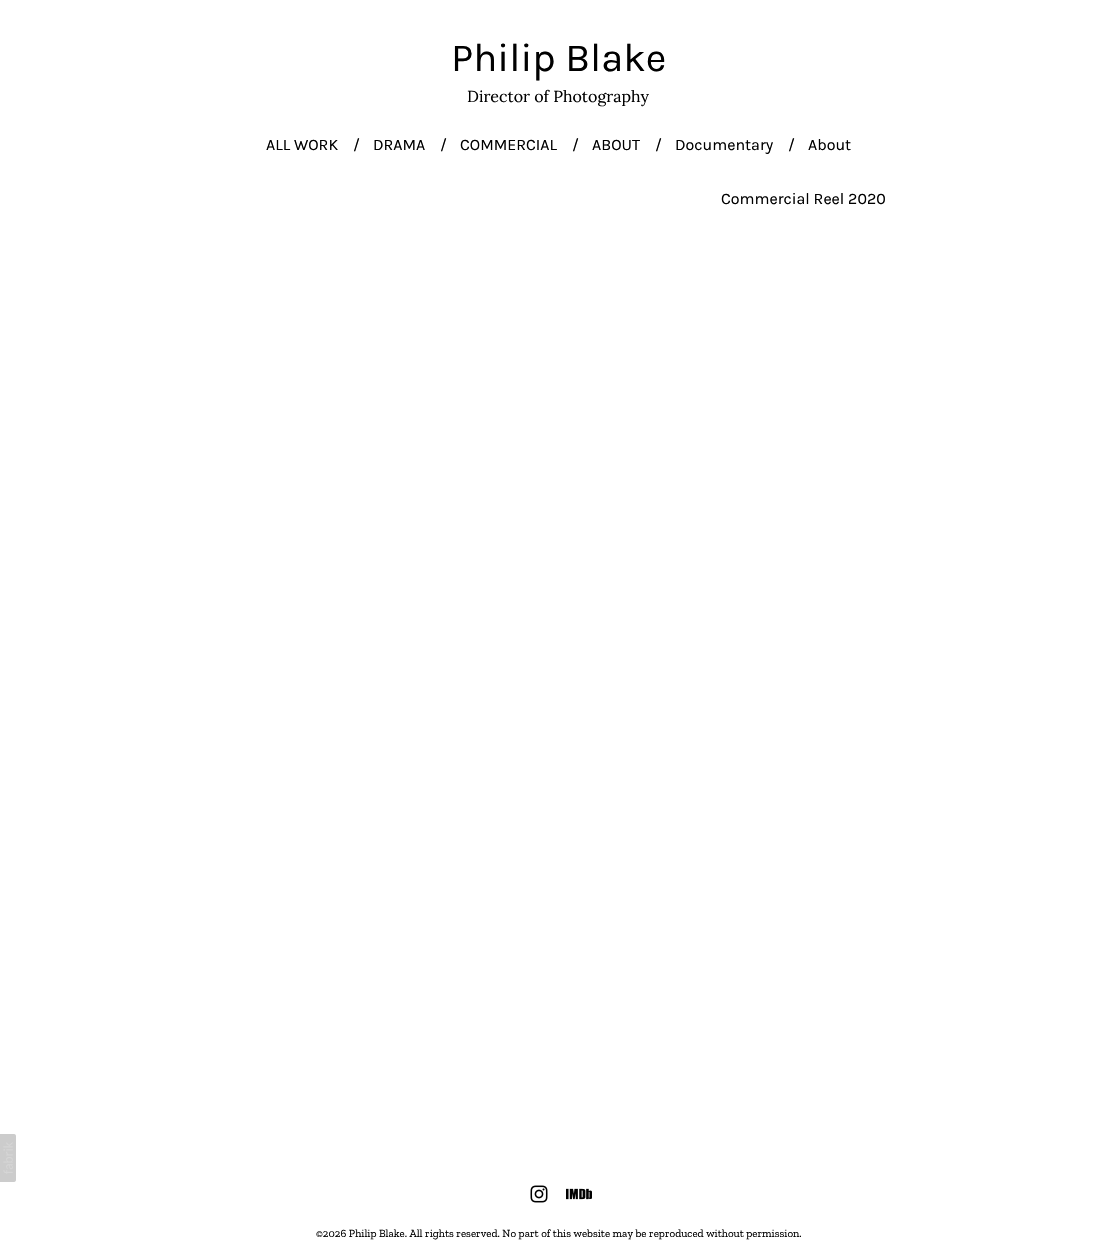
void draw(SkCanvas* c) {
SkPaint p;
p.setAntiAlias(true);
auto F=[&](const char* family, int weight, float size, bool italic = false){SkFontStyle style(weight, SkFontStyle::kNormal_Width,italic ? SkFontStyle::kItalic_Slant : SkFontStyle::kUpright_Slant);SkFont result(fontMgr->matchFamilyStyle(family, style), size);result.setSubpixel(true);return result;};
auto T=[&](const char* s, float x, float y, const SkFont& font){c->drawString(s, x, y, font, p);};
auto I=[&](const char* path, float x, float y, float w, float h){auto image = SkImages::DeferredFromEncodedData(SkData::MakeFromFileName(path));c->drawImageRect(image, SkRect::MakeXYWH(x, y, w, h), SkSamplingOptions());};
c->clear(0xffffffff);
I("1.png",0,1134,16,48);
auto f1 = F("Karla",400,40);
p.setColor(0xff000000);
T("Philip Blake",451,71,f1);
auto f2 = F("Lora",400,16);
T("Director of Photography",467,102,f2);
auto f3 = F("Karla",400,16);
T("ALL WORK",266,150,f3);
T("/",353,150,f3);
T("DRAMA",373,150,f3);
T("/",440,150,f3);
T("COMMERCIAL",460,150,f3);
T("/",572,150,f3);
T("ABOUT",592,150,f3);
T("/",655,150,f3);
T("Documentary",675,150,f3);
T("/",788,150,f3);
T("About",808,150,f3);
T("Commercial Reel 2020",721,204,f3);
I("2.png",530,1185,18,18);
I("3.png",566,1188,26,12);
auto f4 = F("Zilla Slab",400,11);
T("©2026 Philip Blake. All rights reserved. No part of this website may be reproduced without permission.",316,1237,f4);
}
